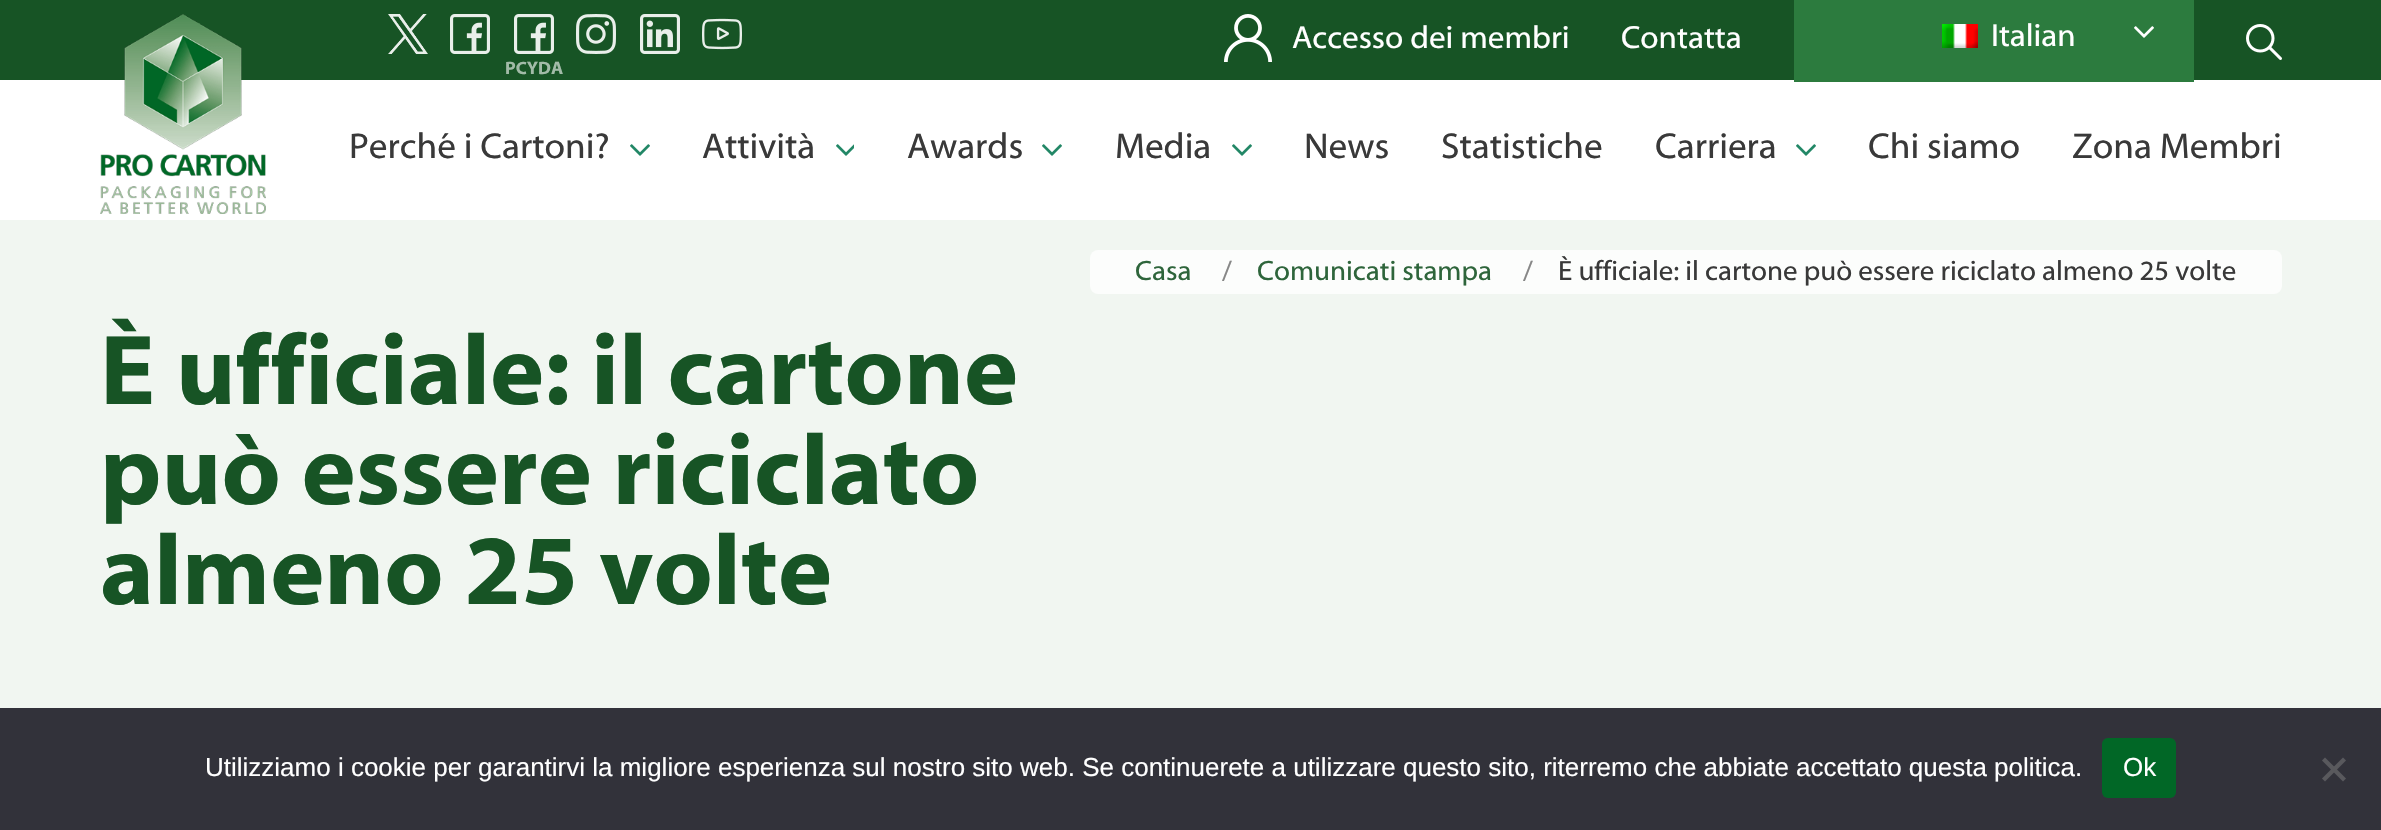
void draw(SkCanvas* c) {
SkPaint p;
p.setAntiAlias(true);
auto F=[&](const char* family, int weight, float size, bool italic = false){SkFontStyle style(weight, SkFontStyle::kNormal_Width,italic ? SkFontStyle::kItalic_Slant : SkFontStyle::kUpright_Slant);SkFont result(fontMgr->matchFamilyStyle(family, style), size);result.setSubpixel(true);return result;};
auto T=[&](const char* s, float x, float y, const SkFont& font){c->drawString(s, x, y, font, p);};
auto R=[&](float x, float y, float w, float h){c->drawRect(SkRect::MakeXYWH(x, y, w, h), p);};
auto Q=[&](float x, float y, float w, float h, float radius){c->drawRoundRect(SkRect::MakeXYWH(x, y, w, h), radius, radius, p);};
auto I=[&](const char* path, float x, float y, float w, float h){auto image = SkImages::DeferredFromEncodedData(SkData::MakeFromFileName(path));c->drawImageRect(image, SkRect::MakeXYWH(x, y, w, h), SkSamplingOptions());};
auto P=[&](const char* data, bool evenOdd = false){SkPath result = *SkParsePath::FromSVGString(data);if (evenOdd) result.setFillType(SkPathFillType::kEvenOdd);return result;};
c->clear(0xfff1f6f1);
p.setColor(0xff175425);
R(0,0,2381,80);
I("1.png",1224,14,48,48);
auto f1 = F("Myriad",400,32);
p.setColor(0xffffffff);
T("Accesso dei membri",1292,48,f1);
T("Contatta",1621,48,f1);
R(0,80,2381,140);
p.setColor(0xff2c7b3e);
R(1794,0,400,82);
I("2.png",1942,24,36,24);
p.setColor(0xffffffff);
T("Italian",1991,46,f1);
I("3.png",2134,26,20,12);
I("4.png",2246,24,36,36);
I("5.png",388,14,40,40);
I("6.png",450,14,40,40);
I("7.png",576,14,40,40);
I("8.png",640,14,40,40);
I("9.png",702,18,40,32);
I("6.png",514,14,40,40);
auto f2 = F("Myriad",700,18);
p.setColor(0xffa2bba8);
T("PCYDA",505,74,f2);
I("10.png",100,14,166,200);
auto f3 = F("Myriad",400,36);
p.setColor(0xff393939);
T("Perché i Cartoni?",349,158,f3);
I("11.png",630,144,20,12);
T("Attività",702,158,f3);
I("12.png",836,144,18,12);
T("Awards",907,158,f3);
I("11.png",1042,144,20,12);
T("Media",1115,158,f3);
I("11.png",1232,144,20,12);
T("News",1304,158,f3);
T("Statistiche",1441,158,f3);
T("Carriera",1655,158,f3);
I("11.png",1796,144,20,12);
T("Chi siamo",1868,158,f3);
T("Zona Membri",2072,158,f3);
p.setColor(0xfffcfdfc);
Q(1090,250,1192,44,8);
auto f4 = F("Myriad",400,28);
p.setColor(0xff2e653b);
T("Casa",1135,280,f4);
p.setColor(0xff878787);
T("/",1222,280,f4);
p.setColor(0xff2e653b);
T("Comunicati stampa",1257,280,f4);
p.setColor(0xff878787);
T("/",1523,280,f4);
p.setColor(0xff393939);
T("È ufficiale: il cartone può essere riciclato almeno 25 volte",1558,280,f4);
auto f5 = F("Myriad",700,100);
p.setColor(0xff175425);
T("È ufficiale: il cartone",100,404,f5);
T("può essere riciclato",100,504,f5);
T("almeno 25 volte",100,604,f5);
p.setColor(0xff32323a);
R(0,708,2381,122);
auto f6 = F("Liberation Sans",400,26);
p.setColor(0xffffffff);
T("Utilizziamo i cookie per garantirvi la migliore esperienza sul nostro sito web. Se continuerete a utilizzare questo sito, riterremo che abbiate accettato questa politica.",205,776,f6);
p.setColor(0xff016726);
Q(2102,738,74,60,6);
p.setColor(0xffffffff);
T("Ok",2123,776,f6);
p.setColor(0xff59595d);
c->drawPath(P("M2343 757.5l3 3l-21 21l-3-3z"),p);
c->drawPath(P("M2322 760.5l3-3l21 21l-3 3z"),p);
}
